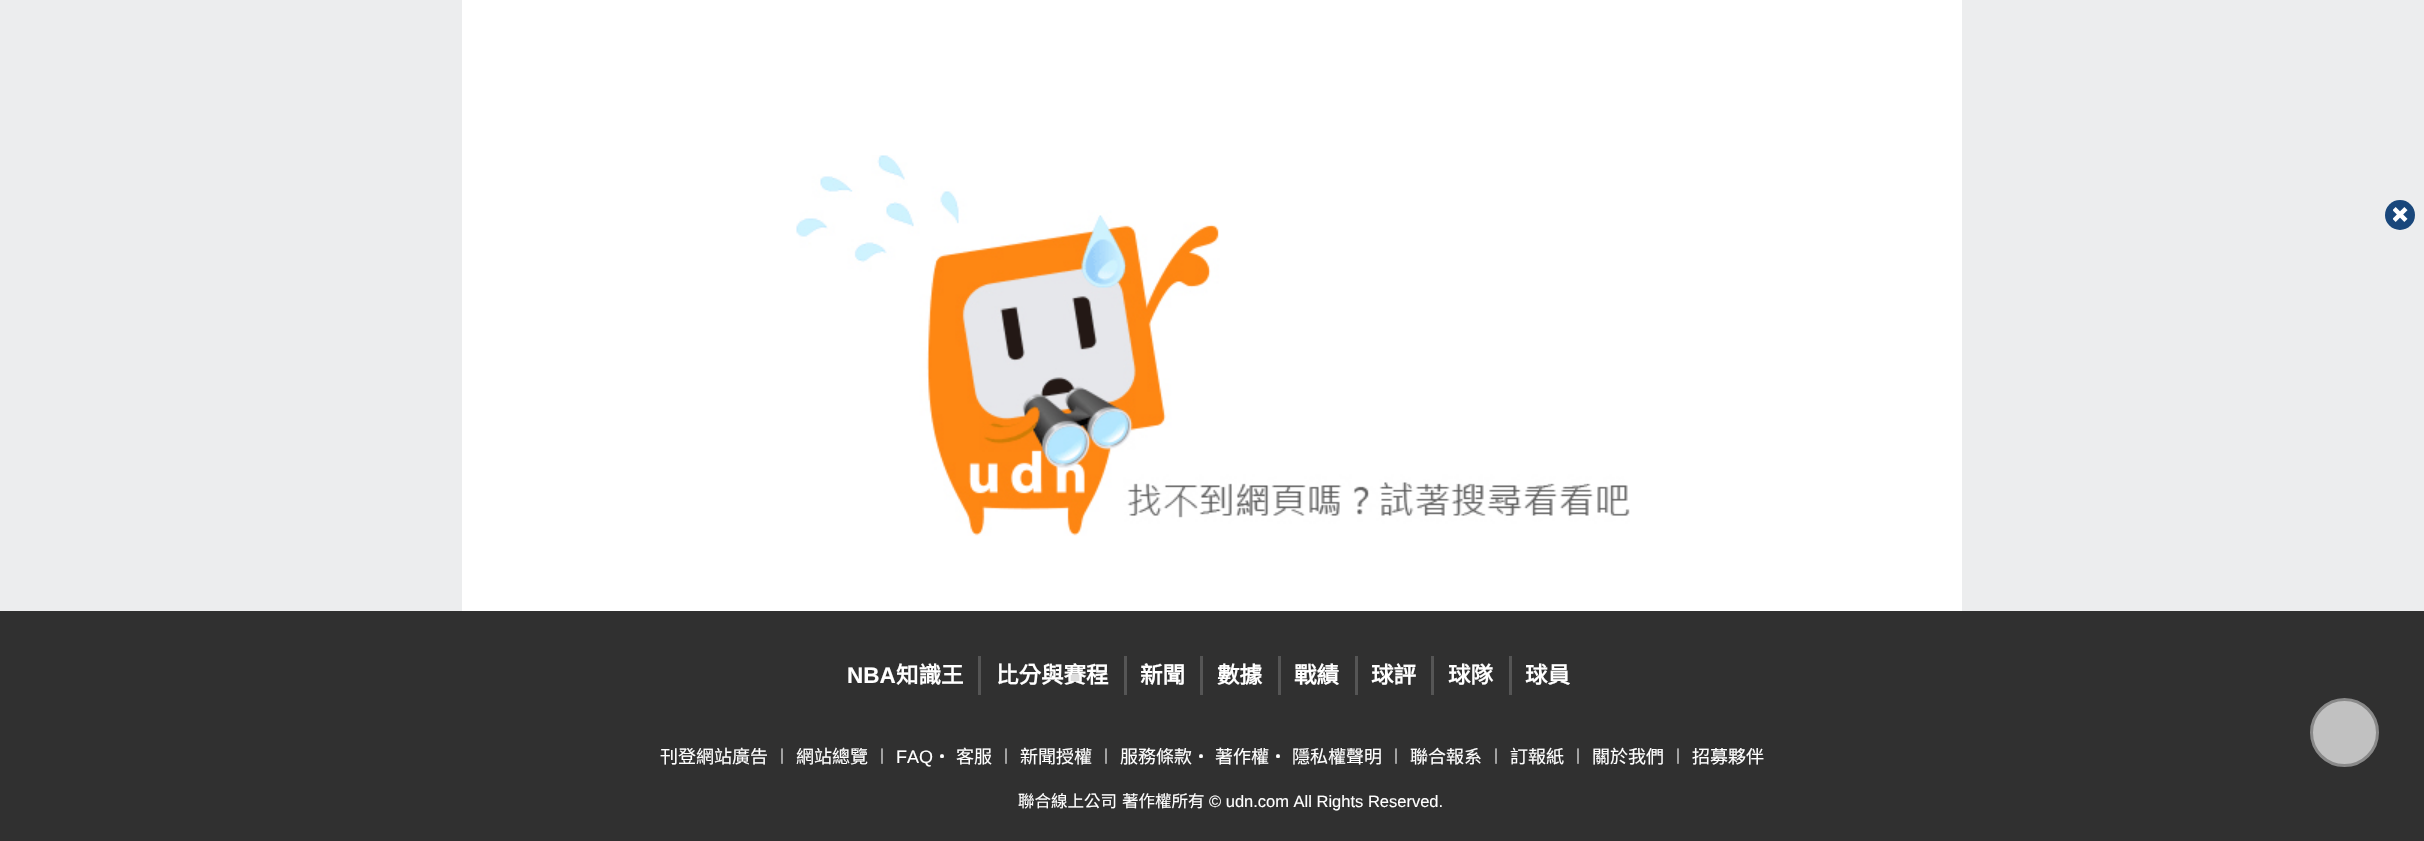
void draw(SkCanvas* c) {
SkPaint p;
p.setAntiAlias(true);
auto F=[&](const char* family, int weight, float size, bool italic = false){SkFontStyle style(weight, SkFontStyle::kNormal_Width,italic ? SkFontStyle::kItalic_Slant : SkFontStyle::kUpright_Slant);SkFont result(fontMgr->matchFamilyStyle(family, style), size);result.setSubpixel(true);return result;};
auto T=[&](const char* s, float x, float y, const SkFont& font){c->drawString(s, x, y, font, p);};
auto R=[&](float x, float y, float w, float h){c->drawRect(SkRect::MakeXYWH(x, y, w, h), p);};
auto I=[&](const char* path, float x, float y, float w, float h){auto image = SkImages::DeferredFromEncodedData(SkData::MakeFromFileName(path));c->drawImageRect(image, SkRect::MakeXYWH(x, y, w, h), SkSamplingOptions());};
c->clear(0xffecedee);
p.setColor(0xffffffff);
R(462,0,1500,611);
I("1.png",796,155,834,381);
p.setColor(0xff303030);
R(0,611,2424,230);
p.setColor(0xff19477b);
c->drawCircle(2400,215,15,p);
I("2.png",2393,207,15,15);
p.setColor(0xff555555);
R(978,656,3,39);
auto f1 = F("Liberation Sans",700,22.5);
p.setColor(0xffffffff);
T("NBA",847,683,f1);
auto f2 = F("Noto Sans CJK TC",700,22.5);
T("知識王",896,683,f2);
p.setColor(0xff555555);
R(1124,656,3,39);
p.setColor(0xffffffff);
T("比分與賽程",996,683,f2);
p.setColor(0xff555555);
R(1200,656,3,39);
p.setColor(0xffffffff);
T("新聞",1140,683,f2);
p.setColor(0xff555555);
R(1278,656,3,39);
p.setColor(0xffffffff);
T("數據",1217,683,f2);
p.setColor(0xff555555);
R(1355,656,3,39);
p.setColor(0xffffffff);
T("戰績",1294,683,f2);
p.setColor(0xff555555);
R(1431,656,3,39);
p.setColor(0xffffffff);
T("球評",1371,683,f2);
p.setColor(0xff555555);
R(1509,656,3,39);
p.setColor(0xffffffff);
T("球隊",1448,683,f2);
T("球員",1525,683,f2);
auto f3 = F("Noto Sans CJK TC",400,18);
T("刊登網站廣告",660,763,f3);
T("︱",773,763,f3);
T("網站總覽",796,763,f3);
T("︱",873,763,f3);
auto f4 = F("Liberation Sans",400,18);
T("FAQ",896,763,f4);
T("‧",933,763,f3);
T("客服",956,763,f3);
T("︱",997,763,f3);
T("新聞授權",1020,763,f3);
T("︱",1097,763,f3);
T("服務條款‧",1120,763,f3);
T("著作權‧",1215,763,f3);
T("隱私權聲明",1292,763,f3);
T("︱",1387,763,f3);
T("聯合報系",1410,763,f3);
T("︱",1487,763,f3);
T("訂報紙",1510,763,f3);
T("︱",1569,763,f3);
T("關於我們",1592,763,f3);
T("︱",1669,763,f3);
T("招募夥伴",1692,763,f3);
auto f5 = F("Noto Sans CJK TC",400,16.5);
T("聯合線上公司",1018,807,f5);
T("著作權所有",1122,807,f5);
auto f6 = F("Liberation Sans",400,16.5);
T("© udn.com All Rights Reserved.",1209,807,f6);
p.setColor(0xffc1c1c1);
c->drawCircle(2344.5,732.5,33,p);
p.setStroke(true);
p.setStrokeWidth(3);
p.setColor(0xff898989);
c->drawCircle(2344.5,732.5,33,p);
}
